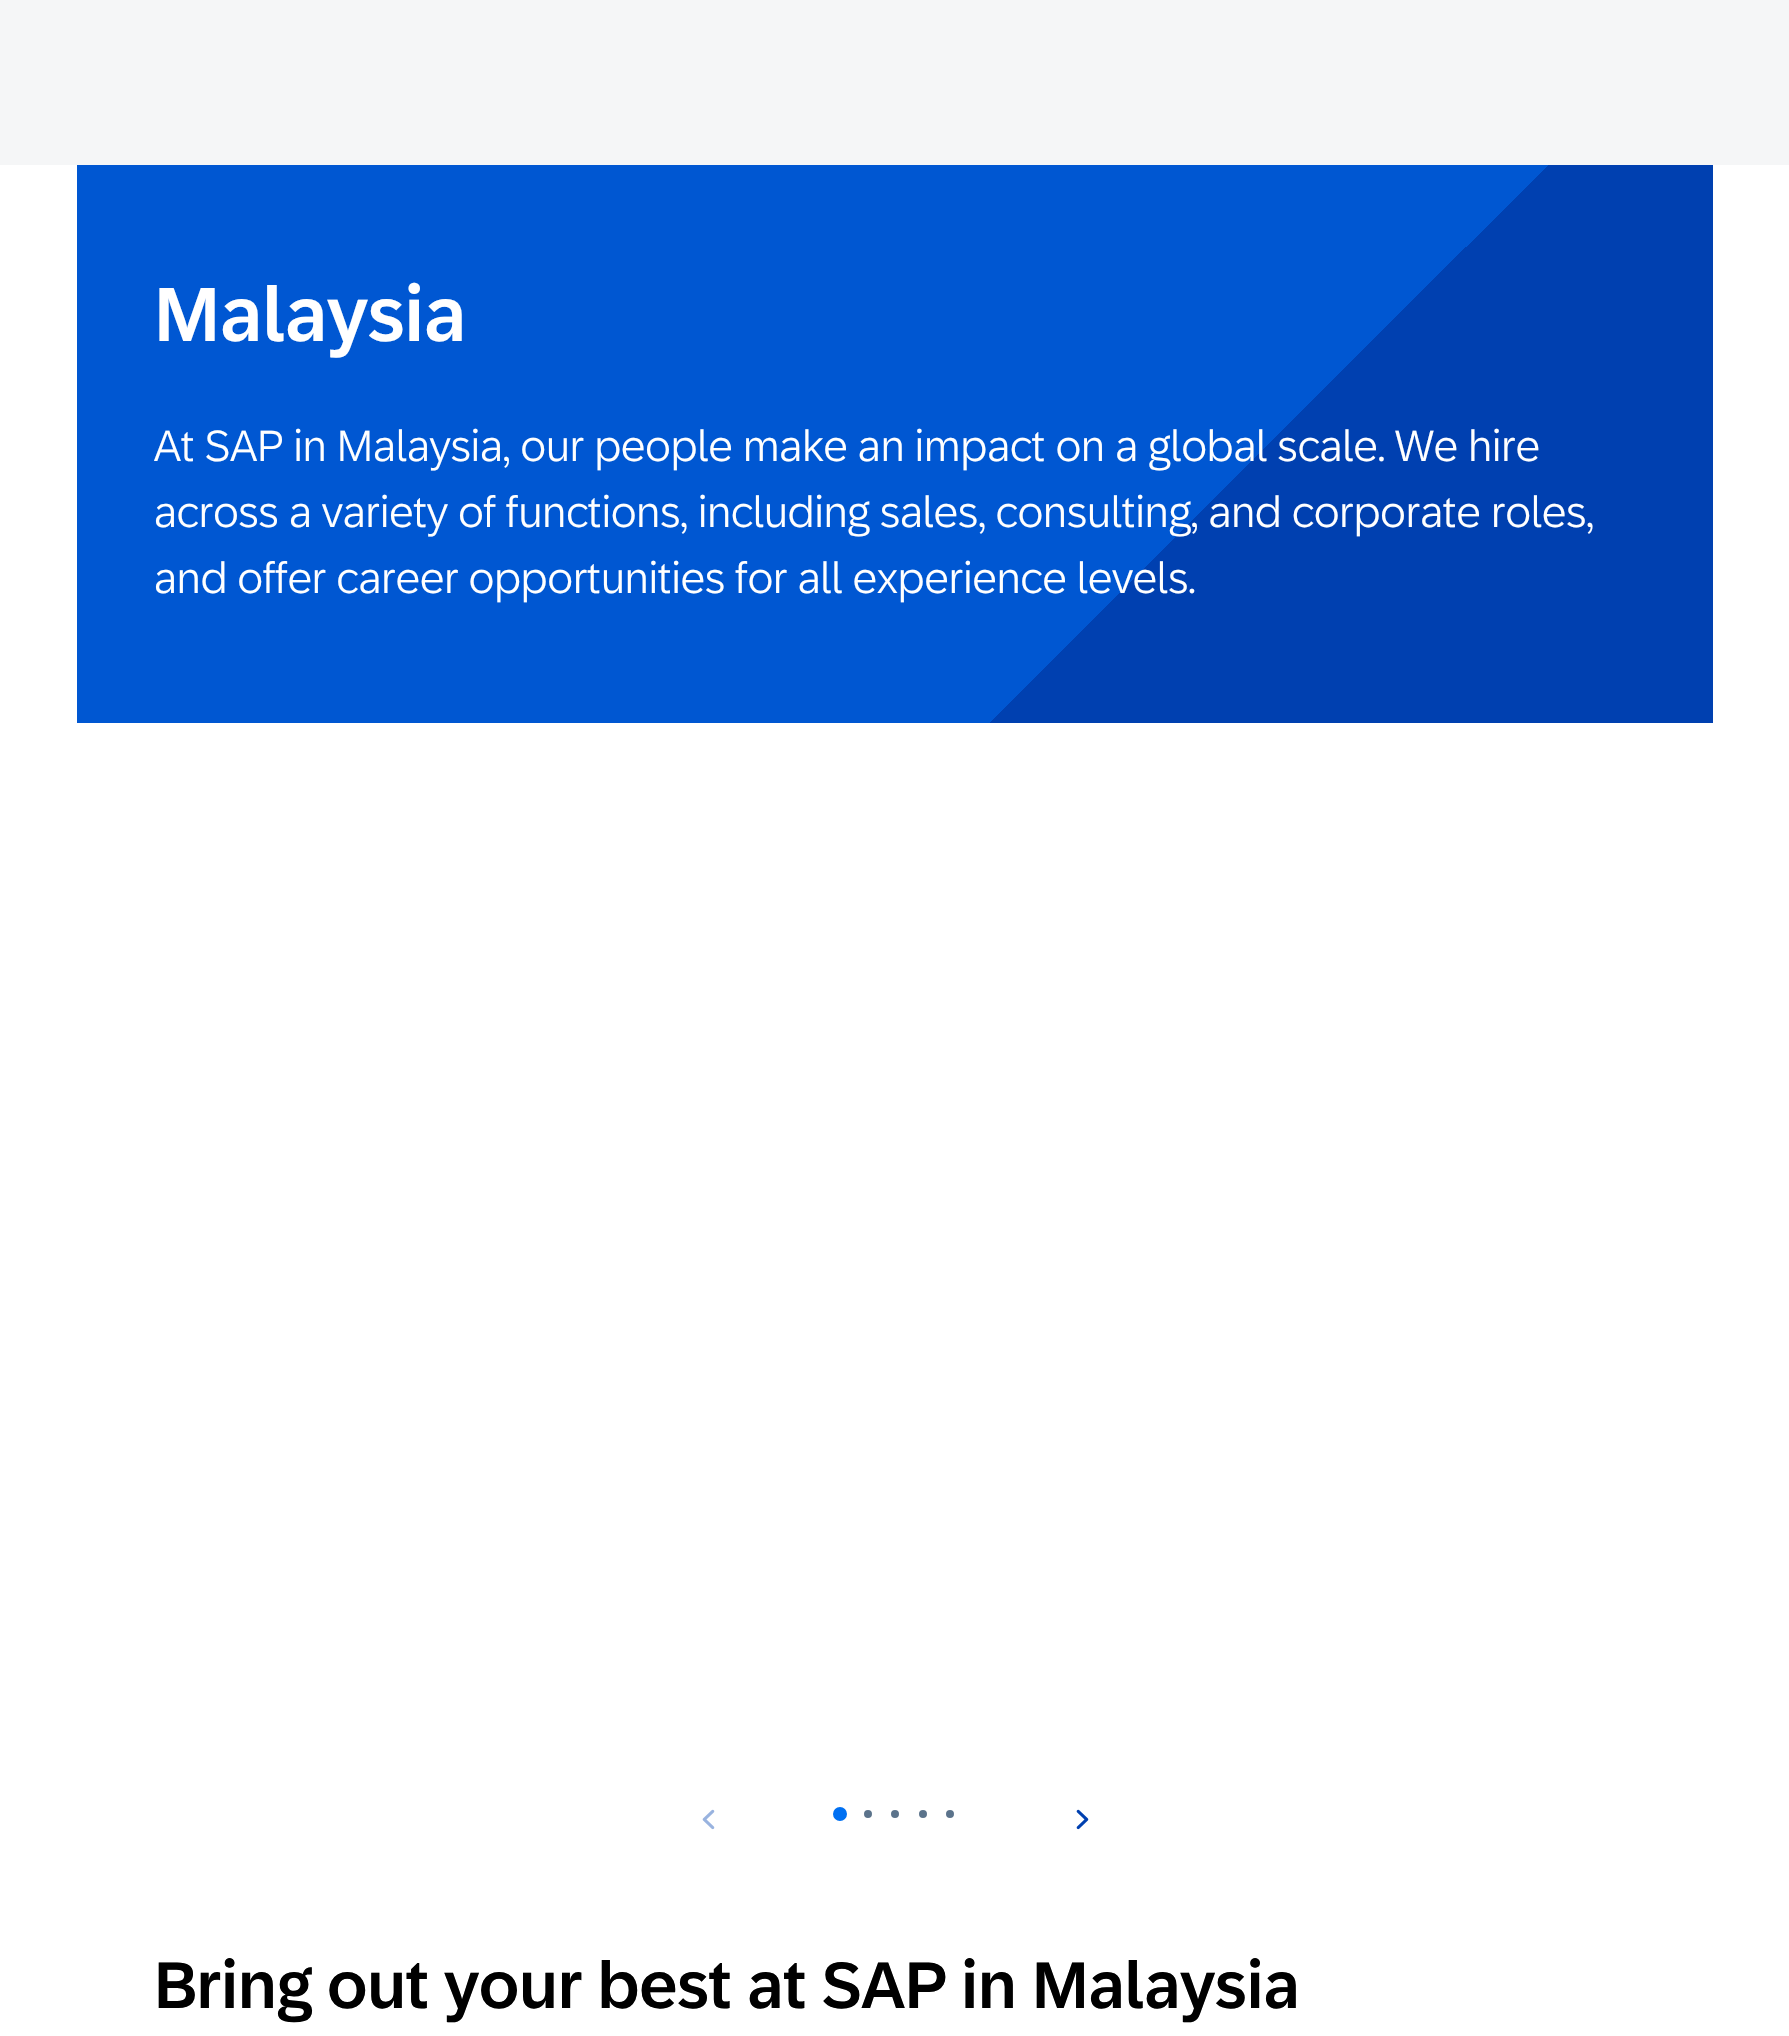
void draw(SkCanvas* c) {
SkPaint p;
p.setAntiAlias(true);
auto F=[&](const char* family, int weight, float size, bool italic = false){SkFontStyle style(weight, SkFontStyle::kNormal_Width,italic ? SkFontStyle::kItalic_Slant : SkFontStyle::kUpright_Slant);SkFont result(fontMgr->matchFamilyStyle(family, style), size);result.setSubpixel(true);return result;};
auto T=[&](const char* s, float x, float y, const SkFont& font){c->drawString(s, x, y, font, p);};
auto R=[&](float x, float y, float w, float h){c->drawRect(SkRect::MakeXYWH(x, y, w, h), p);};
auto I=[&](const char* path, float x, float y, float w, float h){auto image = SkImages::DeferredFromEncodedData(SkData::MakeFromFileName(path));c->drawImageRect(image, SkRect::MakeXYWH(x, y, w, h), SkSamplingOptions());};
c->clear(0xffffffff);
p.setColor(0xfff5f6f7);
R(0,0,1789,165);
{
const SkColor colors[] = {0xff0040b0,0xff0040b0,0xff0057d2,0xff0057d2};
const float stops[] = {0,.33,.33,1};
const SkPoint ends[] = {{1444,993}, {347,-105}};
p.setShader(SkGradientShader::MakeLinear(ends, colors, stops, 4, SkTileMode::kClamp));
p.setAlpha(255);
}
R(77,165,1636,558);
auto f1 = F("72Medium",500,77);
p.setShader(nullptr);
p.setColor(0xffffffff);
T("Malaysia",154,341,f1);
auto f2 = F("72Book",300,44);
T("At SAP in Malaysia, our people make an impact on a global scale. We hire",154,461,f2);
T("across a variety of functions, including sales, consulting, and corporate roles,",154,527,f2);
T("and offer career opportunities for all experience levels.",154,593,f2);
p.setColor(0xff0070f2);
c->drawCircle(840,1814,5.5,p);
p.setStroke(true);
p.setStrokeWidth(3);
c->drawCircle(840,1814,5.5,p);
p.setStroke(false);
p.setColor(0xff5b738b);
c->drawCircle(868,1814,2.5,p);
p.setStroke(true);
c->drawCircle(868,1814,2.5,p);
p.setStroke(false);
c->drawCircle(895,1814,2.5,p);
p.setStroke(true);
c->drawCircle(895,1814,2.5,p);
p.setStroke(false);
c->drawCircle(923,1814,2.5,p);
p.setStroke(true);
c->drawCircle(923,1814,2.5,p);
p.setStroke(false);
c->drawCircle(950,1814,2.5,p);
p.setStroke(true);
c->drawCircle(950,1814,2.5,p);
I("1.png",702,1809,13,21);
I("2.png",1076,1809,13,21);
auto f3 = F("72Medium",500,66);
p.setStroke(false);
p.setColor(0xff000000);
T("Bring out your best at SAP in Malaysia",154,2008,f3);
}
